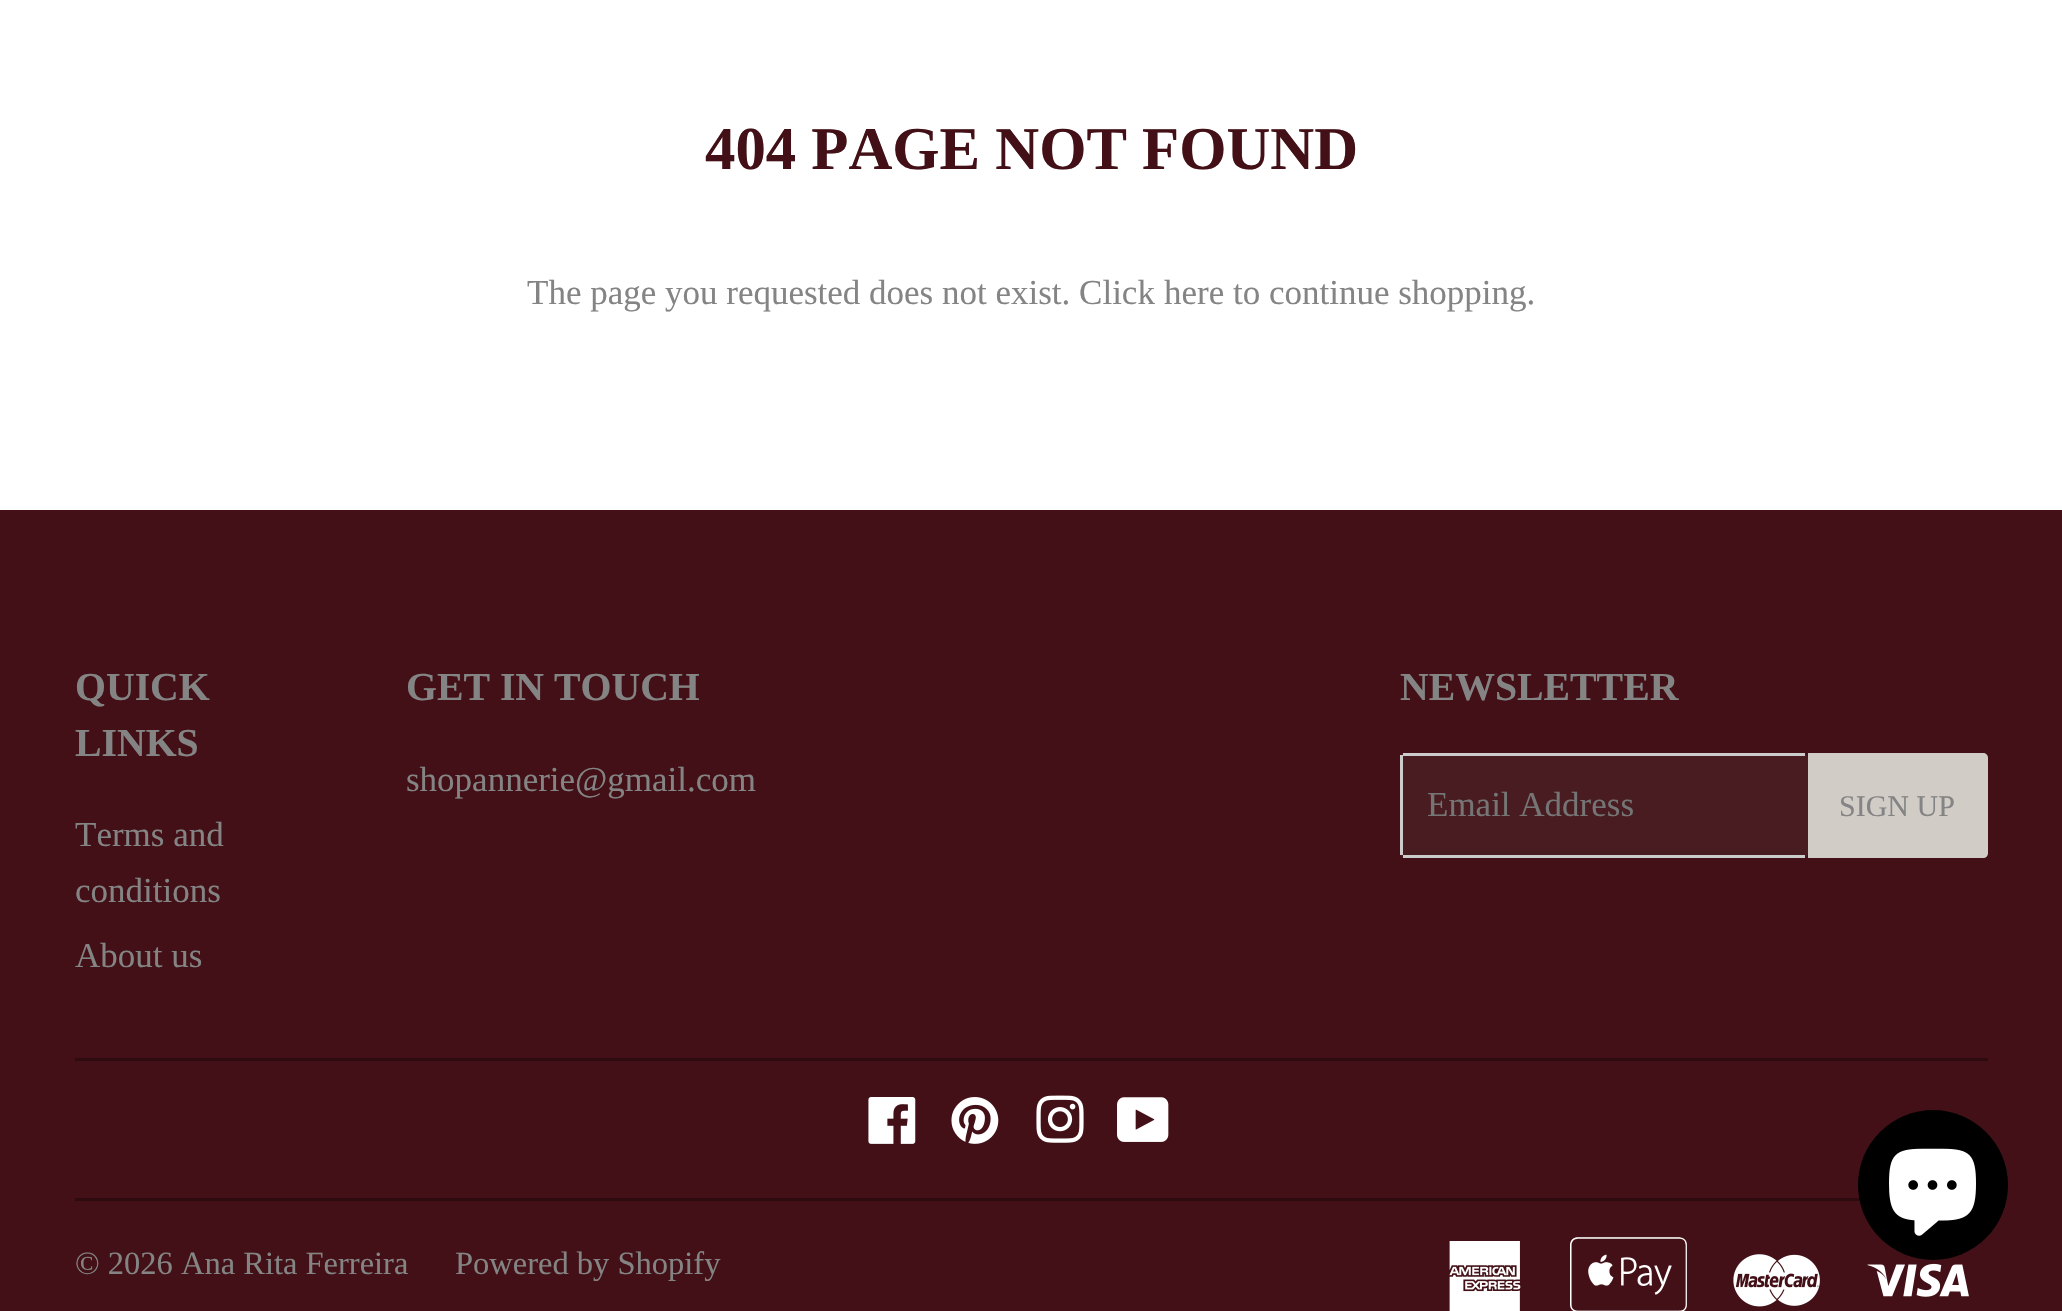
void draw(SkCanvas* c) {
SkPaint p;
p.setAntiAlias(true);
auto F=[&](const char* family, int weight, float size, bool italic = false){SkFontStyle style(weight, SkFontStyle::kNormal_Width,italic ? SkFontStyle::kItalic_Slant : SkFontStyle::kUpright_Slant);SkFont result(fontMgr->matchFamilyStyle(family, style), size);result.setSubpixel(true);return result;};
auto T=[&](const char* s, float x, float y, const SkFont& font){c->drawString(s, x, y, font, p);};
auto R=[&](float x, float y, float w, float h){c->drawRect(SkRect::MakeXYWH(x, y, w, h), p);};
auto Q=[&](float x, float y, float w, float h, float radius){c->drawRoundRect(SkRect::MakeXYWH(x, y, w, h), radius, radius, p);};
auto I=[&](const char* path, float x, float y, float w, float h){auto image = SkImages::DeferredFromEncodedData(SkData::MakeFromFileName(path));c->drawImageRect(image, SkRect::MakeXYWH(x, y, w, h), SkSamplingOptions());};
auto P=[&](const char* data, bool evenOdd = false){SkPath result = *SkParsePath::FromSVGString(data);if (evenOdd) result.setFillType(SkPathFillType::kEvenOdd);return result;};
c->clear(0xffffffff);
auto f1 = F("Liberation Serif",700,60.75);
p.setColor(0xff421016);
T("404 PAGE NOT FOUND",705,169,f1);
auto f2 = F("Liberation Serif",400,35);
p.setColor(0xff848484);
T("The page you requested does not exist. Click",527,304,f2);
T("here",1164,304,f2);
T("to continue shopping.",1233,304,f2);
p.setColor(0xff421016);
R(0,510,2062,801);
auto f3 = F("Liberation Serif",700,39.75);
p.setColor(0xff848484);
T("QUICK",75,700,f3);
T("LINKS",75,756,f3);
T("Terms and",75,846,f2);
T("conditions",75,902,f2);
T("About us",75,967,f2);
T("GET IN TOUCH",406,700,f3);
T("shopannerie@gmail.com",406,791,f2);
T("NEWSLETTER",1400,700,f3);
p.setColor(0xff491c21);
Q(1400,753,408,105,5);
p.setColor(0xffcccccc);
R(1403,753,402,3);
R(1403,855,402,3);
R(1400,755,3,100);
p.setColor(0xff757575);
T("Email Address",1427,816,f2);
p.setColor(0xffd2ccc7);
c->drawPath(P("M1808 753h175c3 0 5 2 5 5v95c0 3-2 5-5 5h-175z"),p);
auto f4 = F("Liberation Serif",400,30);
p.setColor(0xff848484);
T("SIGN UP",1839,816,f4);
p.setColor(0xff2d0b0f);
R(75,1058,1913,3);
I("1.png",868,1097,48,47);
I("2.png",951,1097,48,47);
I("3.png",1036,1095,48,48);
I("4.png",1117,1097,52,45);
R(75,1198,1785,3);
auto f5 = F("Liberation Serif",400,32.5);
p.setColor(0xff848484);
T("© 2026 Ana Rita Ferreira",75,1274,f5);
T("Powered by Shopify",455,1274,f5);
I("5.png",1449,1241,72,70);
I("6.png",1570,1237,117,74);
I("7.png",1733,1254,87,53);
I("8.png",1867,1263,102,34);
p.setColor(0xff000000);
c->drawCircle(1933,1185,75,p);
I("9.png",1889,1148,87,88);
}
